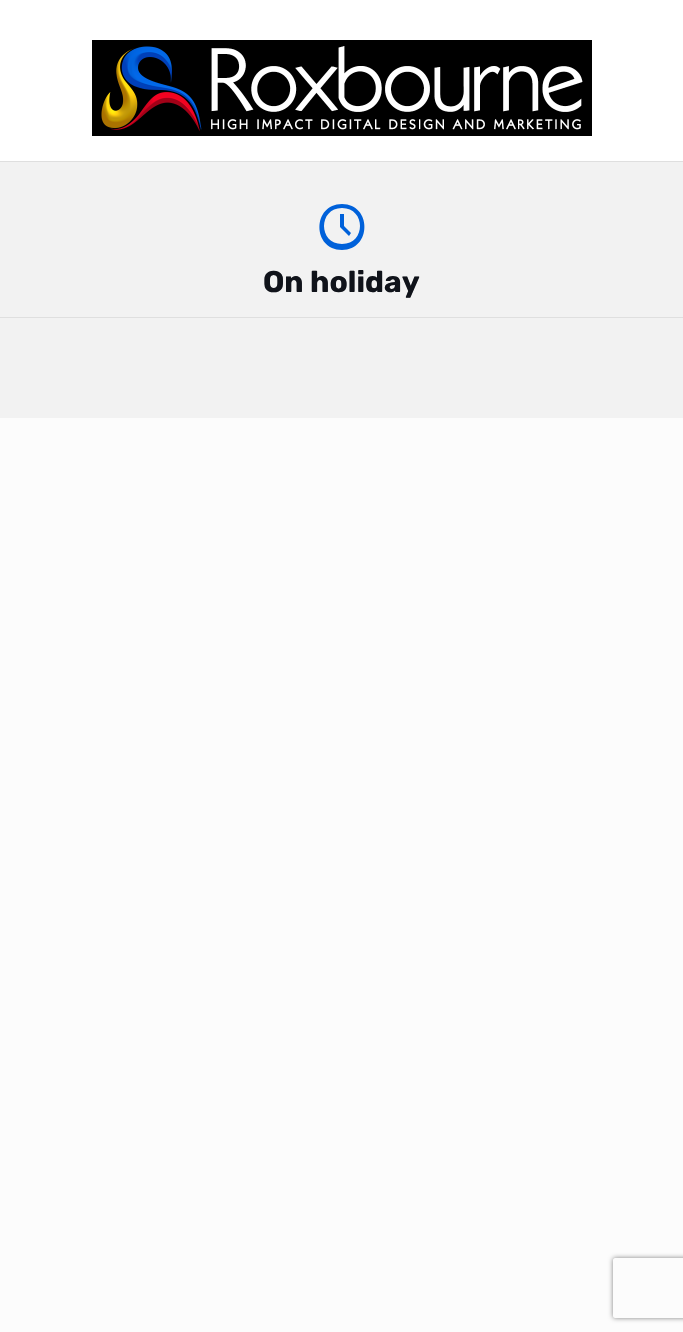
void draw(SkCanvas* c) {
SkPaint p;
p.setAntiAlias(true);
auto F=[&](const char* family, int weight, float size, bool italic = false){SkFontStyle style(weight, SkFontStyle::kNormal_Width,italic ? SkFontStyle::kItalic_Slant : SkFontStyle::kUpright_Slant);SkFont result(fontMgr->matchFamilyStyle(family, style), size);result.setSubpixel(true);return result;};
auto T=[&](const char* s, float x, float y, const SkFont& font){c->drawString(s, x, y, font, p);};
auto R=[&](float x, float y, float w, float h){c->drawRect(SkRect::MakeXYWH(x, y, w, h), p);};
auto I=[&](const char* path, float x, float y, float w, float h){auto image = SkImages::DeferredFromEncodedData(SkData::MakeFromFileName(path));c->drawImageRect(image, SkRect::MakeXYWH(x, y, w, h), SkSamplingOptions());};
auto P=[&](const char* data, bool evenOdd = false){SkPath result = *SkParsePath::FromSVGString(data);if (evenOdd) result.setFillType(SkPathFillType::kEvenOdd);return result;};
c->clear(0xfffcfcfc);
p.setColor(0xfff2f2f2);
R(0,162,683,256);
p.setColor(0xffffffff);
R(0,0,683,161);
I("1.png",92,40,500,96);
p.setColor(0xffdfdfdf);
R(0,161,683,1);
p.setColor(0xff0061da);
c->drawPath(P("M342 204c30 0 30 46 0 46c-30 0-30-46 0-46zm0 40c24 0 24-36 0-36c-24 0-24 36 0 36zm2-30v12l7 7l-2 3l-9-9v-13z"),p);
auto f1 = F("Rubik",300,30);
p.setColor(0xff10131a);
T("On holiday",263,292,f1);
p.setColor(0xffdfdfdf);
R(0,317,683,1);
c->save();
c->clipPath(P("M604 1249h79v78h-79zm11 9h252c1 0 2 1 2 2v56c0 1-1 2-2 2h-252c-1 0-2-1-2-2v-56c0-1 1-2 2-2z",true),true);
p.setColor(0xff808080);
p.setMaskFilter(SkMaskFilter::MakeBlur(kNormal_SkBlurStyle, 2.5));
c->drawRoundRect(SkRect::MakeXYWH(613,1258,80,60),2,2,p);
p.setMaskFilter(nullptr);
c->restore();
}
